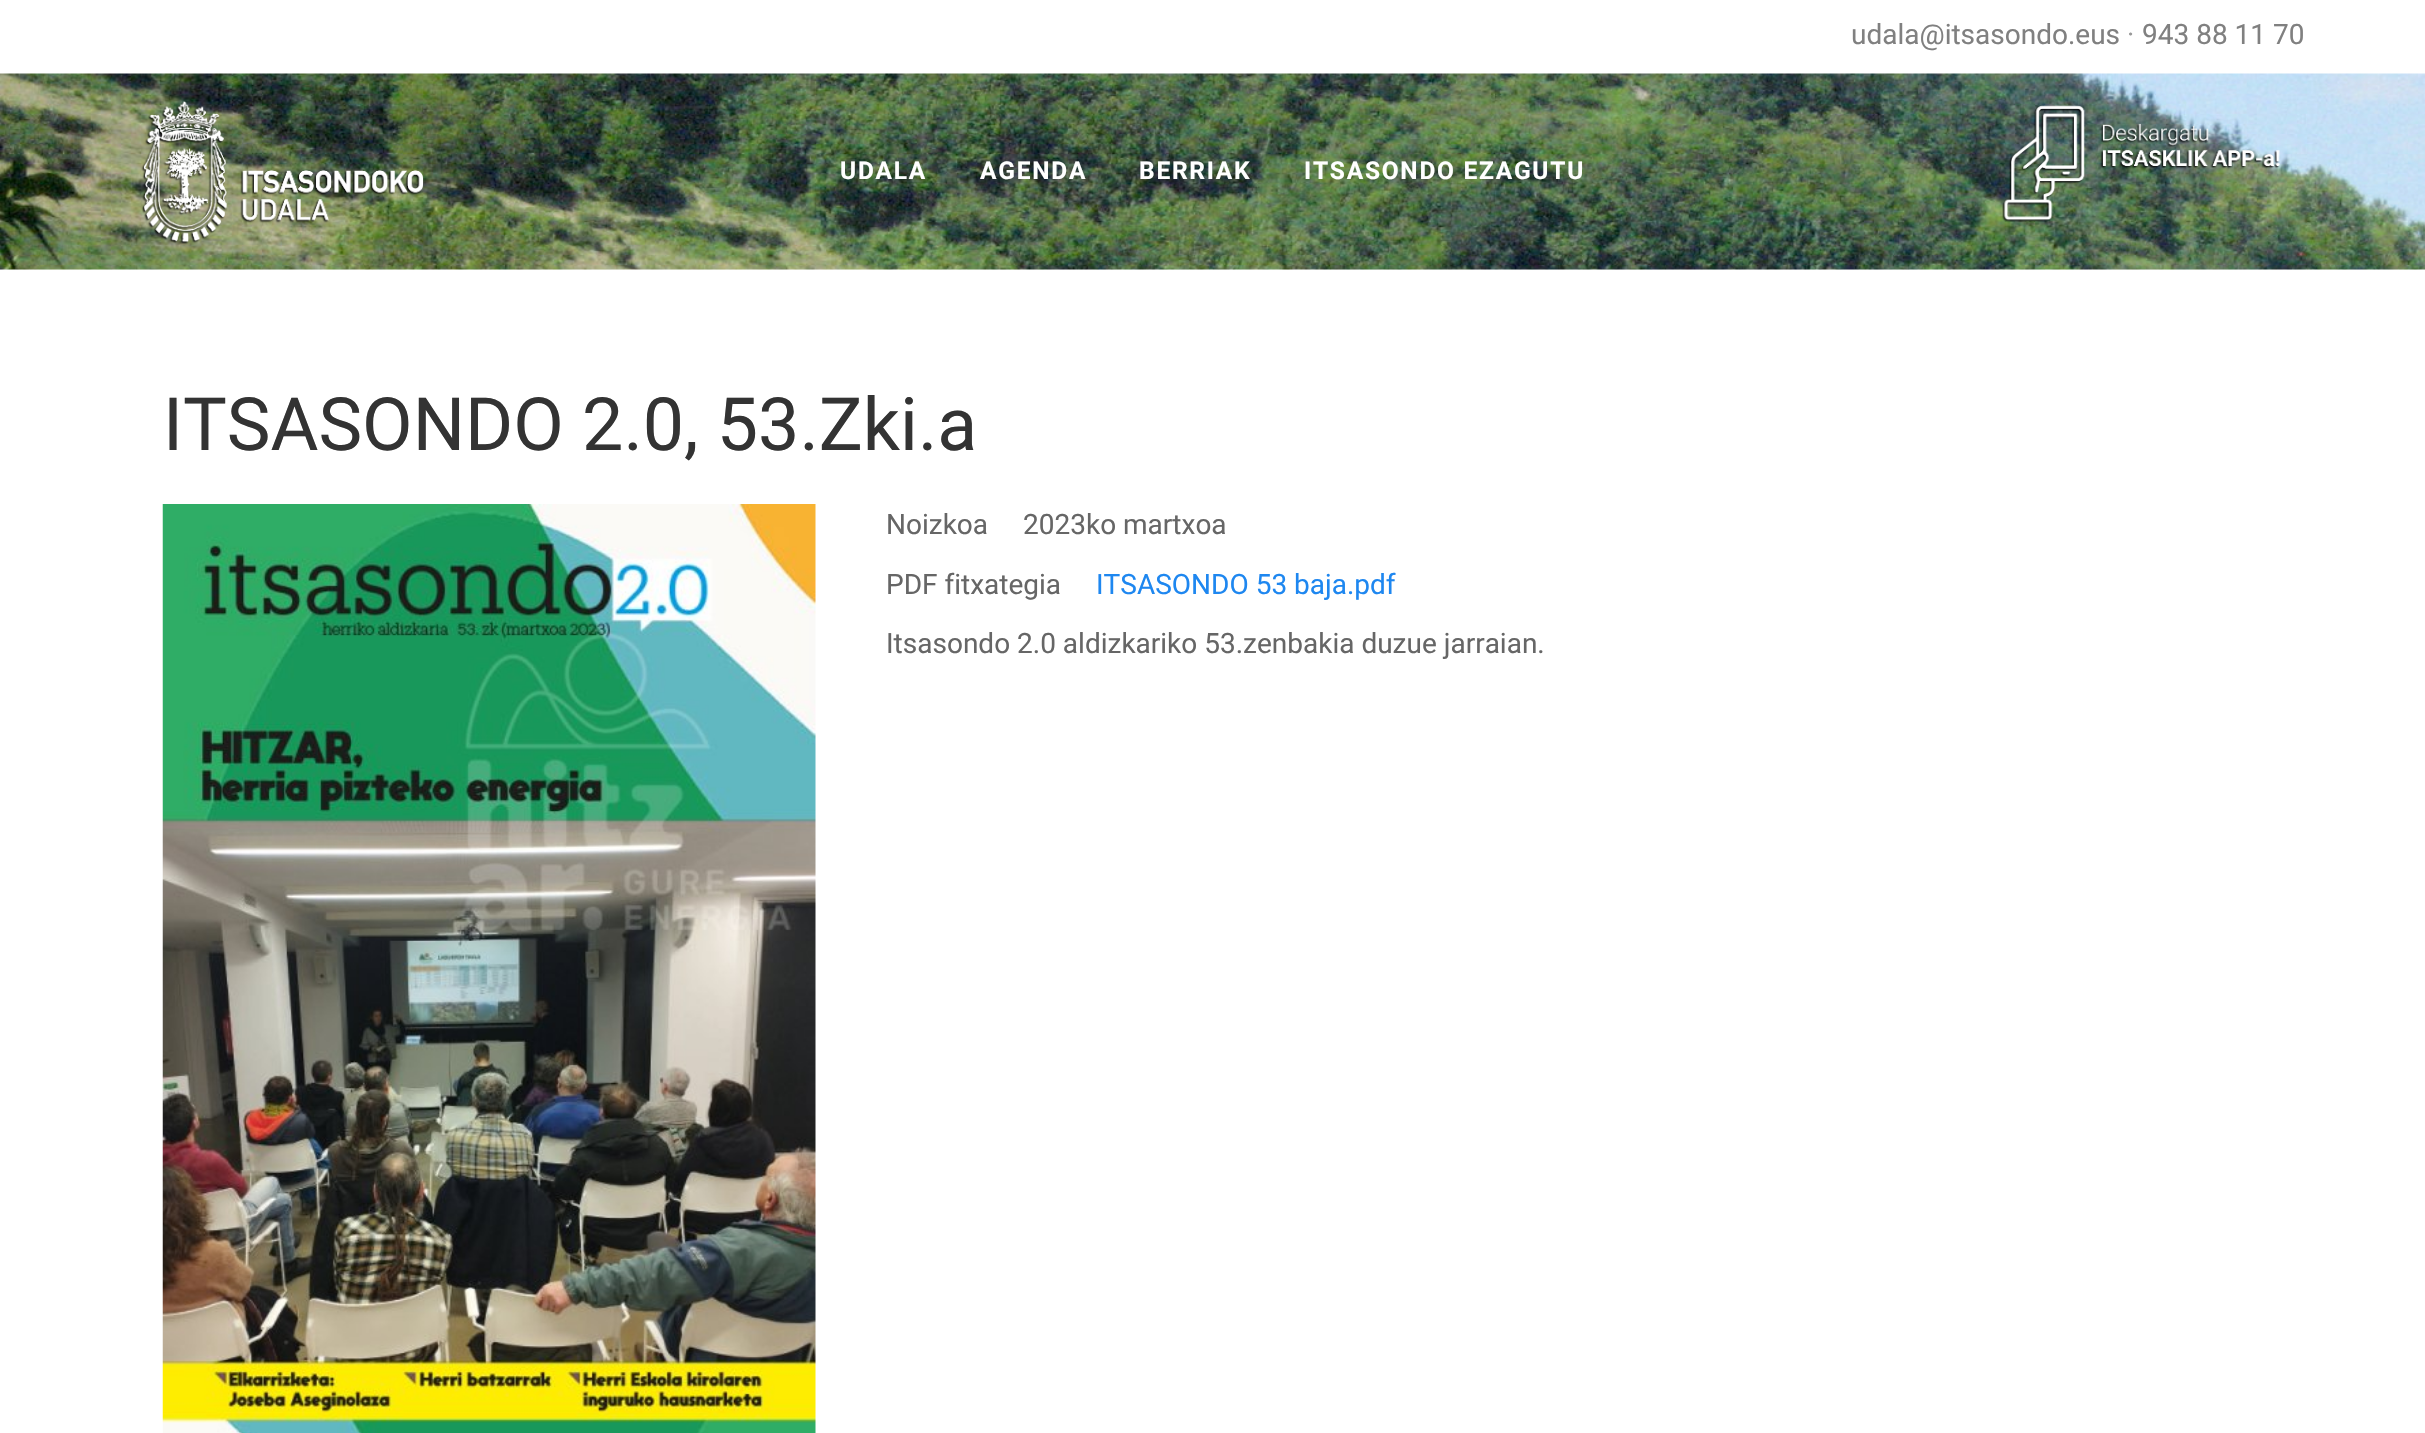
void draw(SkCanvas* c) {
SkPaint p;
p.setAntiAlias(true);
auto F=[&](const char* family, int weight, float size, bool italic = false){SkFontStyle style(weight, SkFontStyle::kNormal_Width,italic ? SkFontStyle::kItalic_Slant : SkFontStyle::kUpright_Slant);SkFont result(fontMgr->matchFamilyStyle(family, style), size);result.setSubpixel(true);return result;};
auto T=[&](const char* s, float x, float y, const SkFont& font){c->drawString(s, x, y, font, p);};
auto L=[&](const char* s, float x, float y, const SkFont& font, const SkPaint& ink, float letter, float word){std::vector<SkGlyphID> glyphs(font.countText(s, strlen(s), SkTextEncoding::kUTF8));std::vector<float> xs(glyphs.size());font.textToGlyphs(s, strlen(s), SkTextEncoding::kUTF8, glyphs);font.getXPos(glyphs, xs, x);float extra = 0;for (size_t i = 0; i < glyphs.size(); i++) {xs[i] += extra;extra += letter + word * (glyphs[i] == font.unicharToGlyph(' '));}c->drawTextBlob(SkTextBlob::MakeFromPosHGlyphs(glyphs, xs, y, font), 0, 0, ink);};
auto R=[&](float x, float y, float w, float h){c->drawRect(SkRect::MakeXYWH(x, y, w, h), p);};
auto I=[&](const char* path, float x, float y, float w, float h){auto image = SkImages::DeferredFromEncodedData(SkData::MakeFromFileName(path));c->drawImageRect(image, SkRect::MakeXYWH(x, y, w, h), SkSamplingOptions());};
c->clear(0xffffffff);
auto f1 = F("Roboto",400,28);
p.setColor(0xff808080);
T("udala@itsasondo.eus",1851,44,f1);
p.setColor(0xff999999);
T("·",2127,44,f1);
p.setColor(0xff808080);
T("943 88 11 70",2142,44,f1);
p.setColor(0xfff8f8f8);
R(0,269,2425,1);
I("1.png",0,73,2425,197);
I("2.png",141,101,283,143);
auto f2 = F("Roboto",700,24.5);
p.setColor(0xffffffff);
L("UDALA",840,179,f2,p,1.75,0);
L("AGENDA",980,179,f2,p,1.75,0);
L("BERRIAK",1139,179,f2,p,1.75,0);
L("ITSASONDO EZAGUTU",1304,179,f2,p,1.75,0);
I("3.png",2002,105,278,117);
auto f3 = F("Roboto",400,73.5);
p.setColor(0xff333333);
T("ITSASONDO 2.0, 53.Zki.a",163,450,f3);
I("4.png",162,504,654,929);
p.setColor(0xff666666);
T("Noizkoa",886,534,f1);
T("2023ko martxoa",1023,534,f1);
T("PDF fitxategia",886,594,f1);
p.setColor(0xff1e87f0);
T("ITSASONDO 53 baja.pdf",1096,594,f1);
p.setColor(0xff666666);
T("Itsasondo 2.0 aldizkariko 53.zenbakia duzue jarraian.",886,653,f1);
}
